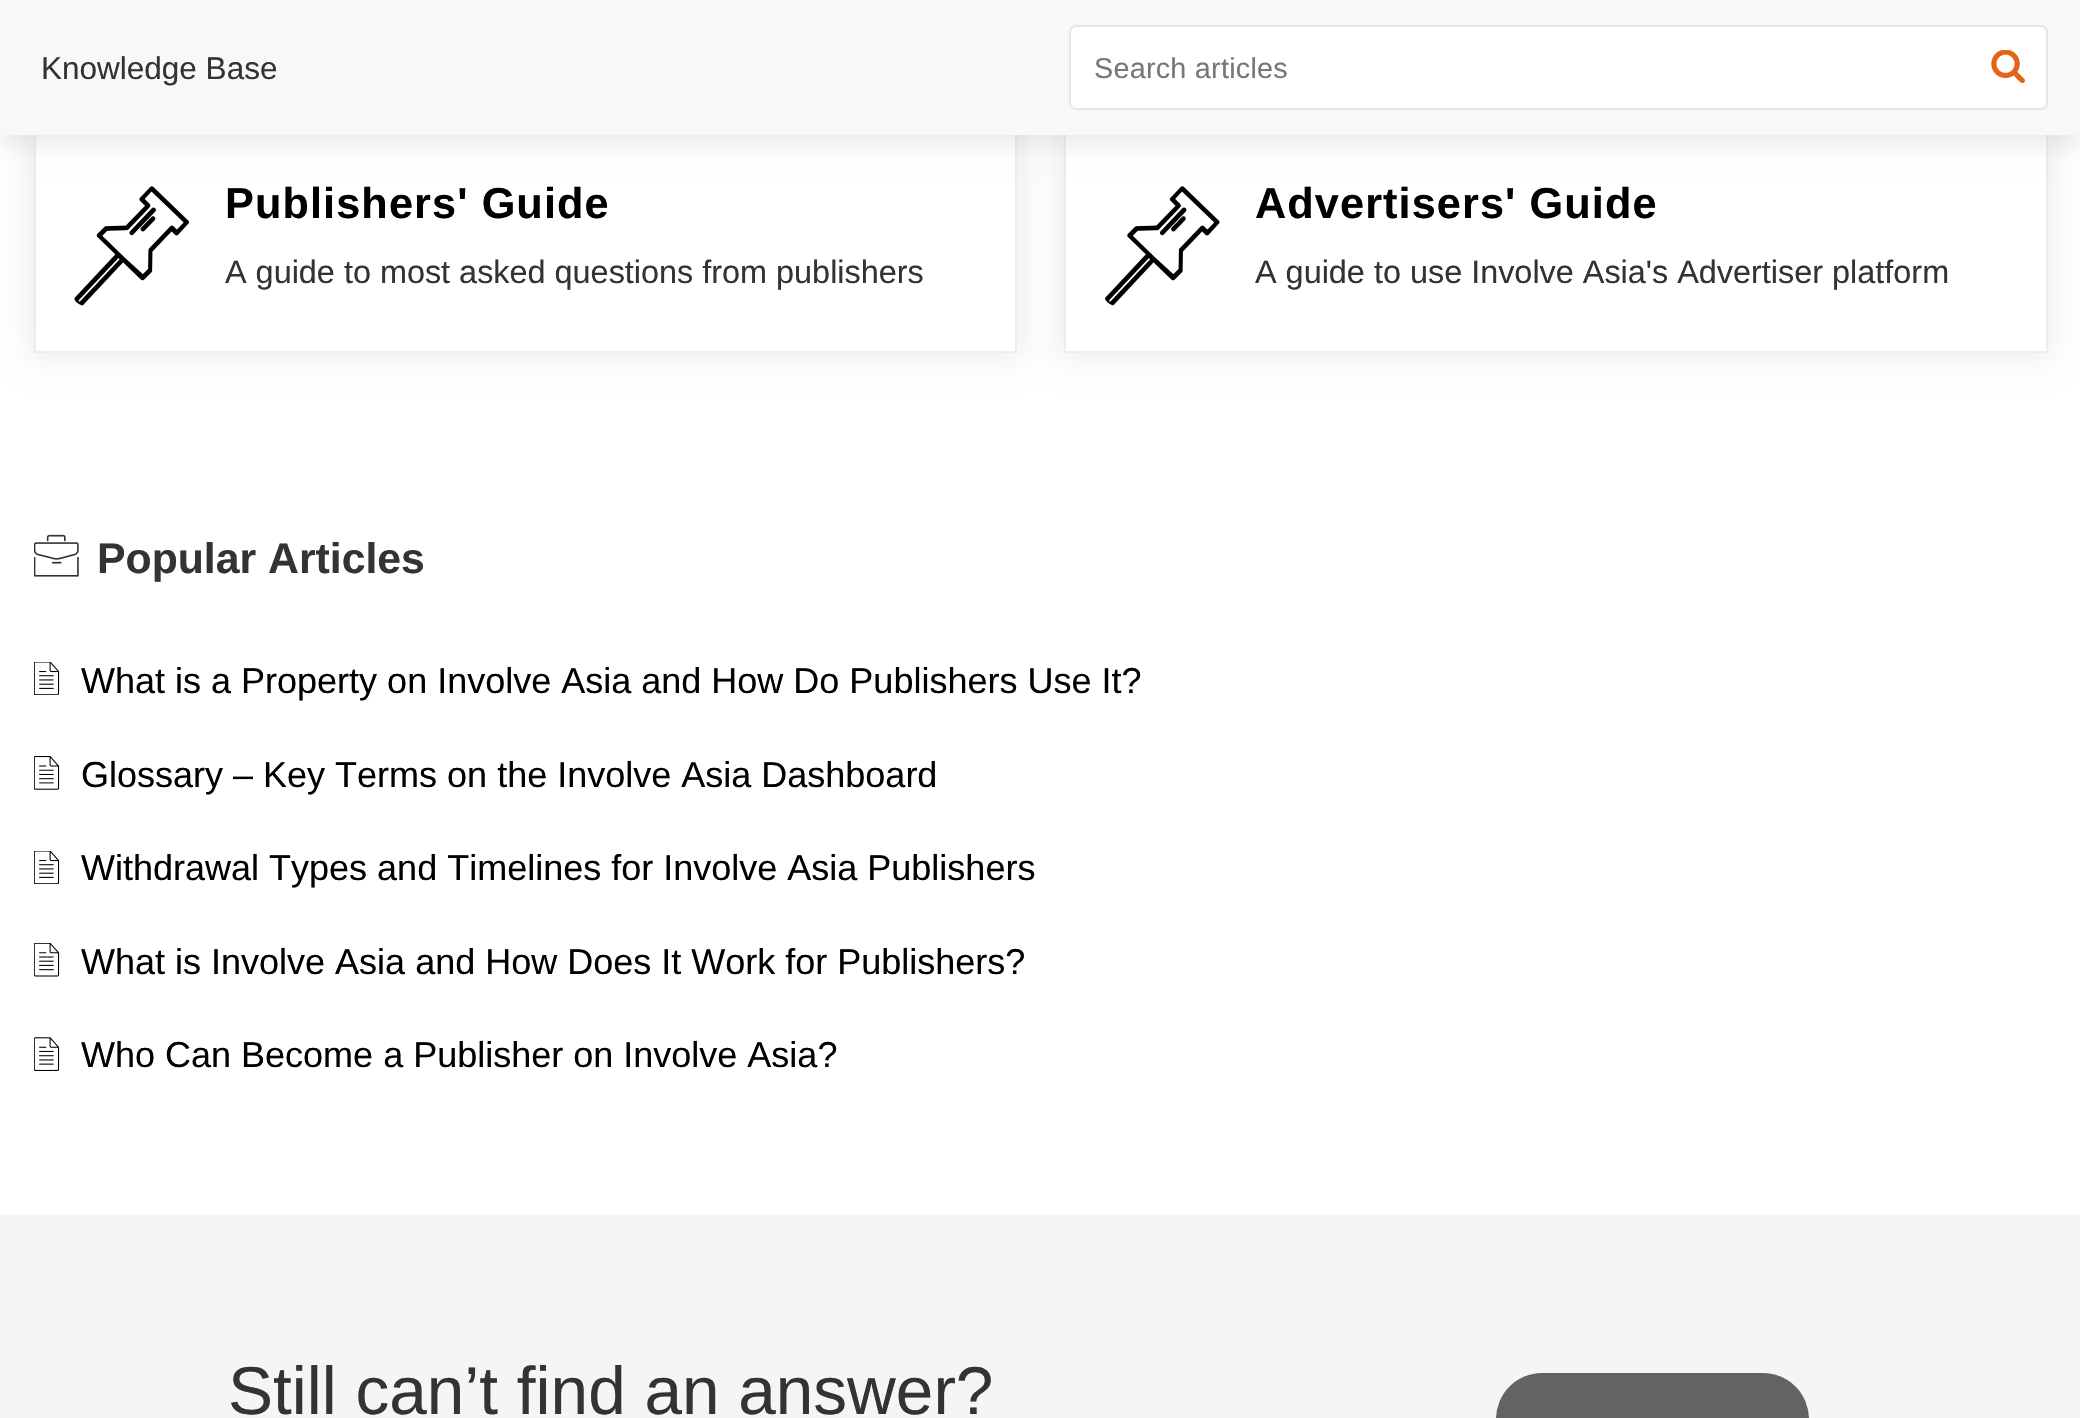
void draw(SkCanvas* c) {
SkPaint p;
p.setAntiAlias(true);
auto F=[&](const char* family, int weight, float size, bool italic = false){SkFontStyle style(weight, SkFontStyle::kNormal_Width,italic ? SkFontStyle::kItalic_Slant : SkFontStyle::kUpright_Slant);SkFont result(fontMgr->matchFamilyStyle(family, style), size);result.setSubpixel(true);return result;};
auto T=[&](const char* s, float x, float y, const SkFont& font){c->drawString(s, x, y, font, p);};
auto L=[&](const char* s, float x, float y, const SkFont& font, const SkPaint& ink, float letter, float word){std::vector<SkGlyphID> glyphs(font.countText(s, strlen(s), SkTextEncoding::kUTF8));std::vector<float> xs(glyphs.size());font.textToGlyphs(s, strlen(s), SkTextEncoding::kUTF8, glyphs);font.getXPos(glyphs, xs, x);float extra = 0;for (size_t i = 0; i < glyphs.size(); i++) {xs[i] += extra;extra += letter + word * (glyphs[i] == font.unicharToGlyph(' '));}c->drawTextBlob(SkTextBlob::MakeFromPosHGlyphs(glyphs, xs, y, font), 0, 0, ink);};
auto R=[&](float x, float y, float w, float h){c->drawRect(SkRect::MakeXYWH(x, y, w, h), p);};
auto Q=[&](float x, float y, float w, float h, float radius){c->drawRoundRect(SkRect::MakeXYWH(x, y, w, h), radius, radius, p);};
auto I=[&](const char* path, float x, float y, float w, float h){auto image = SkImages::DeferredFromEncodedData(SkData::MakeFromFileName(path));c->drawImageRect(image, SkRect::MakeXYWH(x, y, w, h), SkSamplingOptions());};
auto P=[&](const char* data, bool evenOdd = false){SkPath result = *SkParsePath::FromSVGString(data);if (evenOdd) result.setFillType(SkPathFillType::kEvenOdd);return result;};
c->clear(0xffffffff);
c->save();
c->clipPath(P("M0 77h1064v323h-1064zm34 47h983v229h-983z",true),true);
p.setColor(0xffededed);
p.setMaskFilter(SkMaskFilter::MakeBlur(kNormal_SkBlurStyle, 13.5));
c->drawRect(SkRect::MakeXYWH(29,119,993,239),p);
p.setMaskFilter(nullptr);
c->restore();
p.setStroke(true);
p.setStrokeWidth(2);
c->drawRect(SkRect::MakeXYWH(35,125,981,227),p);
c->save();
c->clipPath(P("M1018 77h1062v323h-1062zm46 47h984v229h-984z",true),true);
p.setStroke(false);
p.setMaskFilter(SkMaskFilter::MakeBlur(kNormal_SkBlurStyle, 13.5));
c->drawRect(SkRect::MakeXYWH(1060,119,992,239),p);
p.setMaskFilter(nullptr);
c->restore();
p.setStroke(true);
c->drawRect(SkRect::MakeXYWH(1065,125,982,227),p);
p.setStroke(false);
p.setColor(0x14000000);
p.setMaskFilter(SkMaskFilter::MakeBlur(kNormal_SkBlurStyle, 11));
c->drawRect(SkRect::MakeXYWH(0,11,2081,135),p);
p.setMaskFilter(nullptr);
p.setColor(0xfff8f8f8);
R(0,0,2080,135);
auto f1 = F("Liberation Sans",400,31.5);
p.setColor(0xff333333);
T("Knowledge Base",41,79,f1);
p.setColor(0xffffffff);
c->drawRoundRect(SkRect::MakeXYWH(1070,26,977,83),6,6,p);
p.setStroke(true);
p.setColor(0xffe5e8ea);
c->drawRoundRect(SkRect::MakeXYWH(1070,26,977,83),6,6,p);
auto f2 = F("Liberation Sans",400,28.75);
p.setStroke(false);
p.setColor(0xff777777);
L("Search articles",1094,78,f2,p,.25,0);
I("1.png",1991,50,34,33);
I("2.png",74,186,116,120);
auto f3 = F("Liberation Sans",700,43.25);
p.setColor(0xff000000);
L("Publishers' Guide",225,218,f3,p,1.1,0);
auto f4 = F("Liberation Sans",400,32.4);
p.setColor(0xff333333);
T("A guide to most asked questions from publishers",225,283,f4);
I("3.png",1105,186,115,120);
p.setColor(0xff000000);
L("Advertisers' Guide",1255,218,f3,p,1.1,0);
p.setColor(0xff333333);
T("A guide to use Involve Asia's Advertiser platform",1255,283,f4);
I("4.png",34,534,45,43);
auto f5 = F("Liberation Sans",700,42.75);
T("Popular Articles",97,573,f5);
I("5.png",34,662,26,33);
auto f6 = F("Liberation Sans",400,36);
p.setColor(0xff000000);
T("What is a Property on Involve Asia and How Do Publishers Use It?",81,693,f6);
I("6.png",34,756,26,34);
T("Glossary – Key Terms on the Involve Asia Dashboard",81,787,f6);
I("5.png",34,851,26,33);
T("Withdrawal Types and Timelines for Involve Asia Publishers",81,880,f6);
I("7.png",34,943,26,34);
T("What is Involve Asia and How Does It Work for Publishers?",81,974,f6);
I("8.png",34,1037,26,34);
T("Who Can Become a Publisher on Involve Asia?",81,1067,f6);
p.setColor(0xfff5f5f5);
R(0,1215,2080,203);
auto f7 = F("Liberation Sans",400,67.5);
p.setColor(0xff333333);
T("Still can’t find an answer?",228,1414,f7);
p.setColor(0xff636363);
Q(1496,1373,313,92,47);
}
